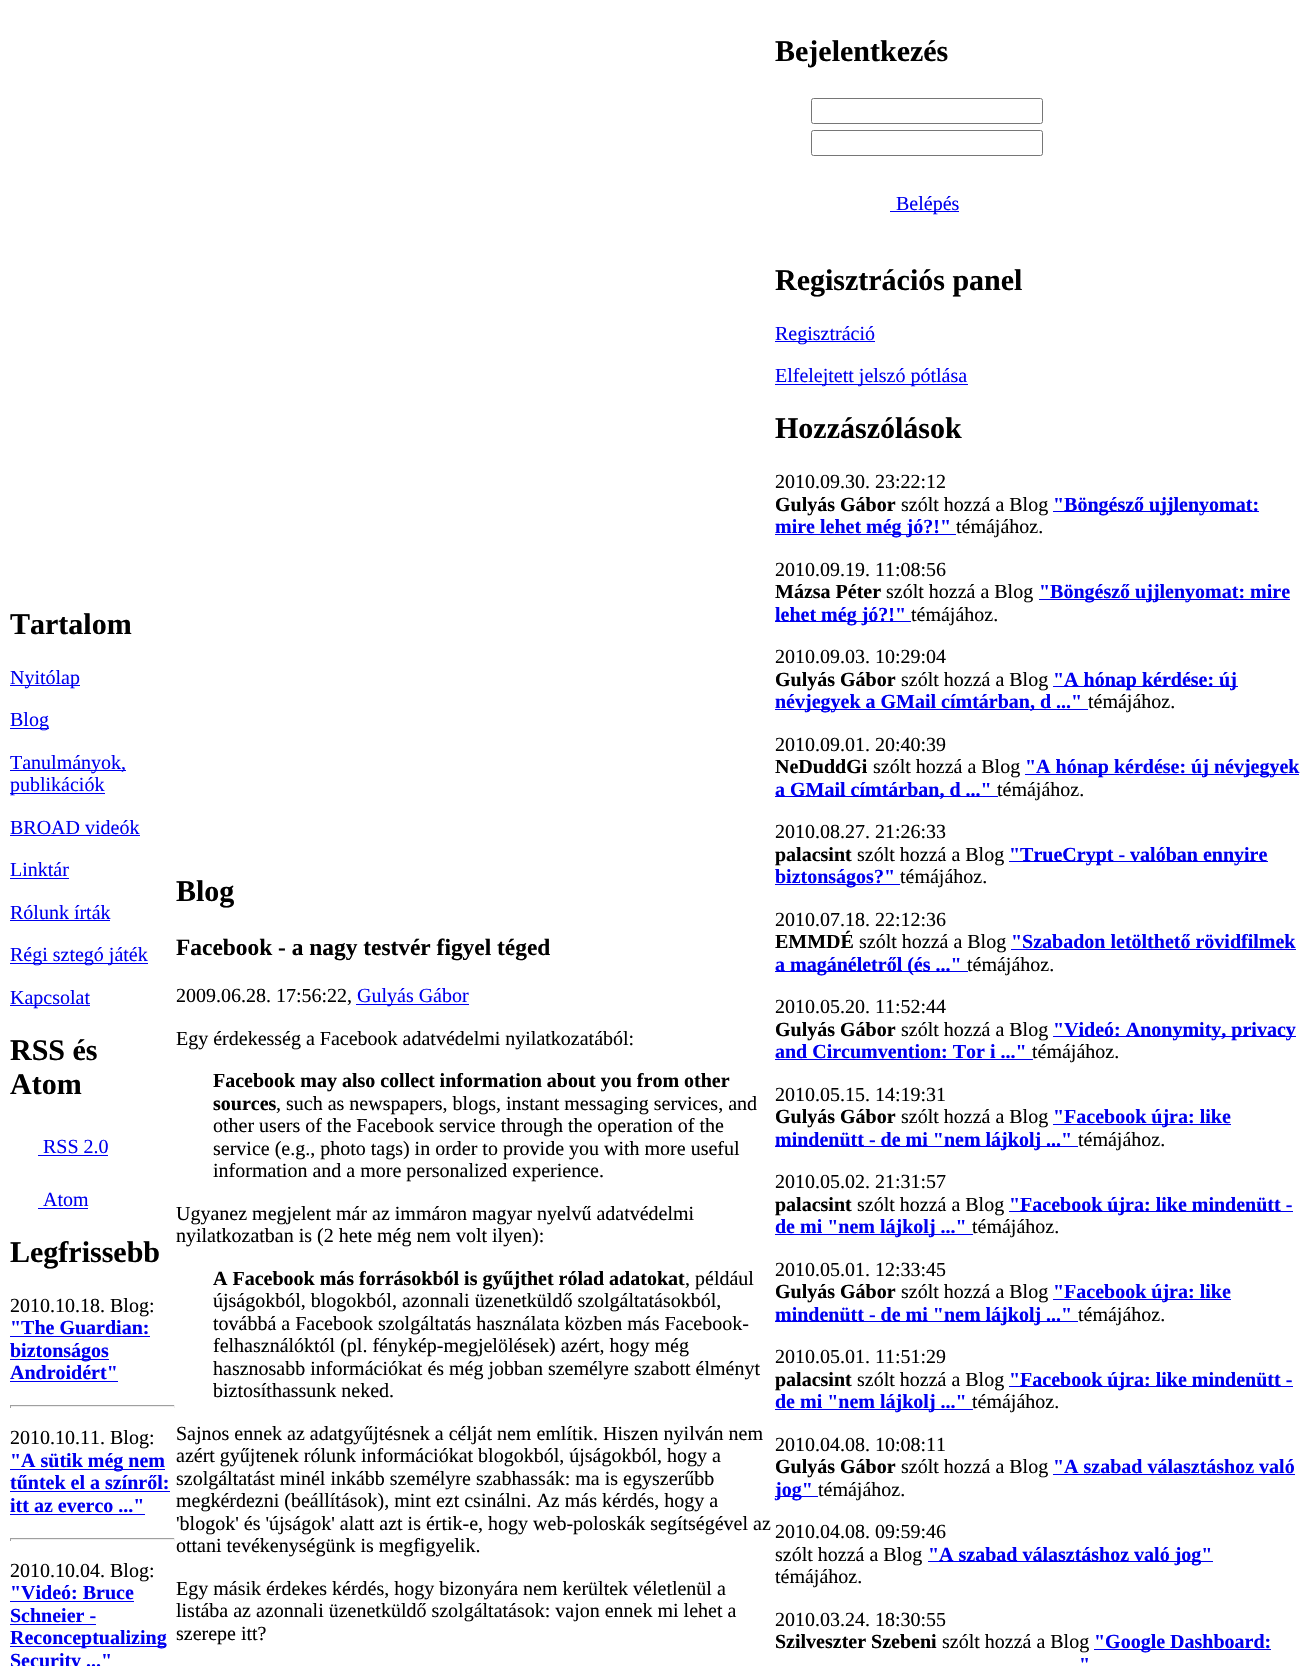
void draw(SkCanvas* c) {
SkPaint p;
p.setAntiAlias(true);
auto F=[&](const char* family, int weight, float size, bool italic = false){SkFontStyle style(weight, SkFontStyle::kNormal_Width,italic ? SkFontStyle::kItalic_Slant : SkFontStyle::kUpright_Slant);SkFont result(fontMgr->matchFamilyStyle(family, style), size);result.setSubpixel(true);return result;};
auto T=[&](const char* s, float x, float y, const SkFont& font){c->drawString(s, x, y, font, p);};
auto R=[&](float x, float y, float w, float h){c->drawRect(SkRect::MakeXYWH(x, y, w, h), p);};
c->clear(0xffffffff);
auto f1 = F("Liberation Serif",700,30);
p.setColor(0xff000000);
T("Tartalom",10,634,f1);
p.setColor(0xff0000ee);
R(10,685,70,1);
auto f2 = F("Liberation Serif",400,20);
T("Nyitólap",10,684,f2);
R(10,728,39,1);
T("Blog",10,726,f2);
R(10,770,116,1);
T("Tanulmányok,",10,769,f2);
R(10,793,95,1);
T("publikációk",10,791,f2);
T("BROAD videók",10,834,f2);
R(10,835,130,1);
T("Linktár",10,876,f2);
R(10,878,59,1);
T("Rólunk írták",10,919,f2);
R(10,920,100,1);
R(10,963,138,1);
T("Régi sztegó játék",10,961,f2);
R(10,1005,80,1);
T("Kapcsolat",10,1004,f2);
p.setColor(0xff000000);
T("RSS és",10,1060,f1);
T("Atom",10,1094,f1);
p.setColor(0xff0000ee);
T("RSS 2.0",43,1153,f2);
R(38,1155,70,1);
T("Atom",43,1206,f2);
R(38,1208,50,1);
p.setColor(0xff000000);
T("Legfrissebb",10,1262,f1);
T("2010.10.18. Blog:",10,1312,f2);
auto f3 = F("Liberation Serif",700,20);
p.setColor(0xff0000ee);
T("\"The Guardian:",10,1334,f3);
R(10,1336,140,1);
R(10,1359,99,1);
T("biztonságos",10,1357,f3);
T("Androidért\"",10,1379,f3);
R(10,1381,108,1);
p.setColor(0xff9f9f9f);
R(10,1405,165,1);
p.setColor(0xffeeeeee);
R(174,1405,1,3);
R(10,1406,165,1);
p.setColor(0xff9f9f9f);
R(10,1405,1,3);
p.setColor(0xff000000);
T("2010.10.11. Blog:",10,1444,f2);
p.setColor(0xff0000ee);
R(10,1469,155,1);
T("\"A sütik még nem",10,1467,f3);
T("tűntek el a színről:",10,1489,f3);
R(10,1491,160,1);
T("itt az everco ...\"",10,1512,f3);
R(10,1514,135,1);
p.setColor(0xff9f9f9f);
R(10,1538,165,1);
p.setColor(0xffeeeeee);
R(174,1538,1,3);
R(10,1539,165,1);
p.setColor(0xff9f9f9f);
R(10,1538,1,3);
p.setColor(0xff000000);
T("2010.10.04. Blog:",10,1577,f2);
p.setColor(0xff0000ee);
T("\"Videó: Bruce",10,1599,f3);
R(10,1601,124,1);
T("Schneier -",10,1622,f3);
R(10,1624,86,1);
R(10,1646,156,1);
T("Reconceptualizing",10,1644,f3);
T("Security ...\"",10,1667,f3);
p.setColor(0xff000000);
T("Blog",176,901,f1);
auto f4 = F("Liberation Serif",700,23.4);
T("Facebook - a nagy testvér figyel téged",176,955,f4);
T("2009.06.28. 17:56:22,",176,1002,f2);
p.setColor(0xff0000ee);
R(356,1004,113,1);
T("Gulyás Gábor",357,1002,f2);
p.setColor(0xff000000);
T("Egy érdekesség a Facebook adatvédelmi nyilatkozatából:",176,1045,f2);
T("Facebook may also collect information about you from other",213,1087,f3);
T("sources",213,1110,f3);
T(", such as newspapers, blogs, instant messaging services, and",276,1110,f2);
T("other users of the Facebook service through the operation of the",213,1132,f2);
T("service (e.g., photo tags) in order to provide you with more useful",213,1155,f2);
T("information and a more personalized experience.",213,1177,f2);
T("Ugyanez megjelent már az immáron magyar nyelvű adatvédelmi",176,1220,f2);
T("nyilatkozatban is (2 hete még nem volt ilyen):",176,1242,f2);
T("A Facebook más forrásokból is gyűjthet rólad adatokat",213,1285,f3);
T(", például",685,1285,f2);
T("újságokból, blogokból, azonnali üzenetküldő szolgáltatásokból,",213,1307,f2);
T("továbbá a Facebook szolgáltatás használata közben más Facebook-",213,1330,f2);
T("felhasználóktól (pl. fénykép-megjelölések) azért, hogy még",213,1352,f2);
T("hasznosabb információkat és még jobban személyre szabott élményt",213,1375,f2);
T("biztosíthassunk neked.",213,1397,f2);
T("Sajnos ennek az adatgyűjtésnek a célját nem említik. Hiszen nyilván nem",176,1440,f2);
T("azért gyűjtenek rólunk információkat blogokból, újságokból, hogy a",176,1462,f2);
T("szolgáltatást minél inkább személyre szabhassák: ma is egyszerűbb",176,1485,f2);
T("megkérdezni (beállítások), mint ezt csinálni. Az más kérdés, hogy a",176,1507,f2);
T("'blogok' és 'újságok' alatt azt is értik-e, hogy web-poloskák segítségével az",176,1530,f2);
T("ottani tevékenységünk is megfigyelik.",176,1552,f2);
T("Egy másik érdekes kérdés, hogy bizonyára nem kerültek véletlenül a",176,1595,f2);
T("listába az azonnali üzenetküldő szolgáltatások: vajon ennek mi lehet a",176,1617,f2);
T("szerepe itt?",176,1640,f2);
T("Bejelentkezés",775,61,f1);
p.setStroke(true);
p.setStrokeWidth(1);
p.setColor(0xff767676);
c->drawRoundRect(SkRect::MakeXYWH(811.5,98.5,231,25),2,2,p);
c->drawRoundRect(SkRect::MakeXYWH(811.5,130.5,231,25),2,2,p);
p.setStroke(false);
p.setColor(0xff0000ee);
R(890,211,69,1);
T("Belépés",896,210,f2);
p.setColor(0xff000000);
T("Regisztrációs panel",775,290,f1);
p.setColor(0xff0000ee);
R(775,341,100,1);
T("Regisztráció",775,340,f2);
R(775,384,193,1);
T("Elfelejtett jelszó pótlása",775,382,f2);
p.setColor(0xff000000);
T("Hozzászólások",775,438,f1);
T("2010.09.30. 23:22:12",775,488,f2);
T("Gulyás Gábor",775,511,f3);
T("szólt hozzá a Blog",901,511,f2);
p.setColor(0xff0000ee);
R(1053,511,206,1);
T("\"Böngésző ujjlenyomat:",1053,511,f3);
R(775,534,181,1);
T("mire lehet még jó?!\"",775,533,f3);
p.setColor(0xff000000);
T("témájához.",956,533,f2);
T("2010.09.19. 11:08:56",775,576,f2);
T("Mázsa Péter",775,598,f3);
T("szólt hozzá a Blog",886,598,f2);
p.setColor(0xff0000ee);
R(1039,599,251,1);
T("\"Böngésző ujjlenyomat: mire",1039,598,f3);
R(775,621,136,1);
T("lehet még jó?!\"",775,621,f3);
p.setColor(0xff000000);
T("témájához.",911,621,f2);
T("2010.09.03. 10:29:04",775,663,f2);
T("Gulyás Gábor",775,686,f3);
T("szólt hozzá a Blog",901,686,f2);
p.setColor(0xff0000ee);
R(1053,686,185,1);
T("\"A hónap kérdése: új",1053,686,f3);
R(775,709,313,1);
T("névjegyek a GMail címtárban, d ...\"",775,708,f3);
p.setColor(0xff000000);
T("témájához.",1088,708,f2);
T("2010.09.01. 20:40:39",775,751,f2);
T("NeDuddGi",775,773,f3);
T("szólt hozzá a Blog",873,773,f2);
p.setColor(0xff0000ee);
R(1025,774,274,1);
T("\"A hónap kérdése: új névjegyek",1025,773,f3);
R(775,796,223,1);
T("a GMail címtárban, d ...\"",775,796,f3);
p.setColor(0xff000000);
T("témájához.",997,796,f2);
T("2010.08.27. 21:26:33",775,838,f2);
T("palacsint",775,861,f3);
T("szólt hozzá a Blog",857,861,f2);
p.setColor(0xff0000ee);
R(1009,861,259,1);
T("\"TrueCrypt - valóban ennyire",1009,861,f3);
R(775,884,125,1);
T("biztonságos?\"",775,883,f3);
p.setColor(0xff000000);
T("témájához.",900,883,f2);
T("2010.07.18. 22:12:36",775,926,f2);
T("EMMDÉ",775,948,f3);
T("szólt hozzá a Blog",859,948,f2);
p.setColor(0xff0000ee);
T("\"Szabadon letölthető rövidfilmek",1011,948,f3);
R(1011,949,285,1);
R(775,971,193,1);
T("a magánéletről (és ...\"",775,971,f3);
p.setColor(0xff000000);
T("témájához.",967,971,f2);
T("2010.05.20. 11:52:44",775,1013,f2);
T("Gulyás Gábor",775,1036,f3);
T("szólt hozzá a Blog",901,1036,f2);
p.setColor(0xff0000ee);
R(1053,1036,243,1);
T("\"Videó: Anonymity, privacy",1053,1036,f3);
T("and Circumvention: Tor i ...\"",775,1058,f3);
R(775,1059,258,1);
p.setColor(0xff000000);
T("témájához.",1032,1058,f2);
T("2010.05.15. 14:19:31",775,1101,f2);
T("Gulyás Gábor",775,1123,f3);
T("szólt hozzá a Blog",901,1123,f2);
p.setColor(0xff0000ee);
R(1053,1124,178,1);
T("\"Facebook újra: like",1053,1123,f3);
R(775,1146,303,1);
T("mindenütt - de mi \"nem lájkolj ...\"",775,1146,f3);
p.setColor(0xff000000);
T("témájához.",1078,1146,f2);
T("2010.05.02. 21:31:57",775,1188,f2);
T("palacsint",775,1211,f3);
T("szólt hozzá a Blog",857,1211,f2);
p.setColor(0xff0000ee);
R(1009,1211,284,1);
T("\"Facebook újra: like mindenütt -",1009,1211,f3);
R(775,1234,198,1);
T("de mi \"nem lájkolj ...\"",775,1233,f3);
p.setColor(0xff000000);
T("témájához.",972,1233,f2);
T("2010.05.01. 12:33:45",775,1276,f2);
T("Gulyás Gábor",775,1298,f3);
T("szólt hozzá a Blog",901,1298,f2);
p.setColor(0xff0000ee);
R(1053,1299,178,1);
T("\"Facebook újra: like",1053,1298,f3);
R(775,1321,303,1);
T("mindenütt - de mi \"nem lájkolj ...\"",775,1321,f3);
p.setColor(0xff000000);
T("témájához.",1078,1321,f2);
T("2010.05.01. 11:51:29",775,1363,f2);
T("palacsint",775,1386,f3);
T("szólt hozzá a Blog",857,1386,f2);
p.setColor(0xff0000ee);
R(1009,1386,284,1);
T("\"Facebook újra: like mindenütt -",1009,1386,f3);
R(775,1409,198,1);
T("de mi \"nem lájkolj ...\"",775,1408,f3);
p.setColor(0xff000000);
T("témájához.",972,1408,f2);
T("2010.04.08. 10:08:11",775,1451,f2);
T("Gulyás Gábor",775,1473,f3);
T("szólt hozzá a Blog",901,1473,f2);
p.setColor(0xff0000ee);
T("\"A szabad választáshoz való",1053,1473,f3);
R(1053,1474,242,1);
R(775,1496,43,1);
T("jog\"",775,1496,f3);
p.setColor(0xff000000);
T("témájához.",818,1496,f2);
T("2010.04.08. 09:59:46",775,1538,f2);
T("szólt hozzá a Blog",775,1561,f2);
p.setColor(0xff0000ee);
R(928,1561,285,1);
T("\"A szabad választáshoz való jog\"",928,1561,f3);
p.setColor(0xff000000);
T("témájához.",775,1583,f2);
T("2010.03.24. 18:30:55",775,1626,f2);
T("Szilveszter Szebeni",775,1648,f3);
T("szólt hozzá a Blog",942,1648,f2);
p.setColor(0xff0000ee);
R(1094,1649,177,1);
T("\"Google Dashboard:",1094,1648,f3);
T("\"",1079,1671,f3);
}
